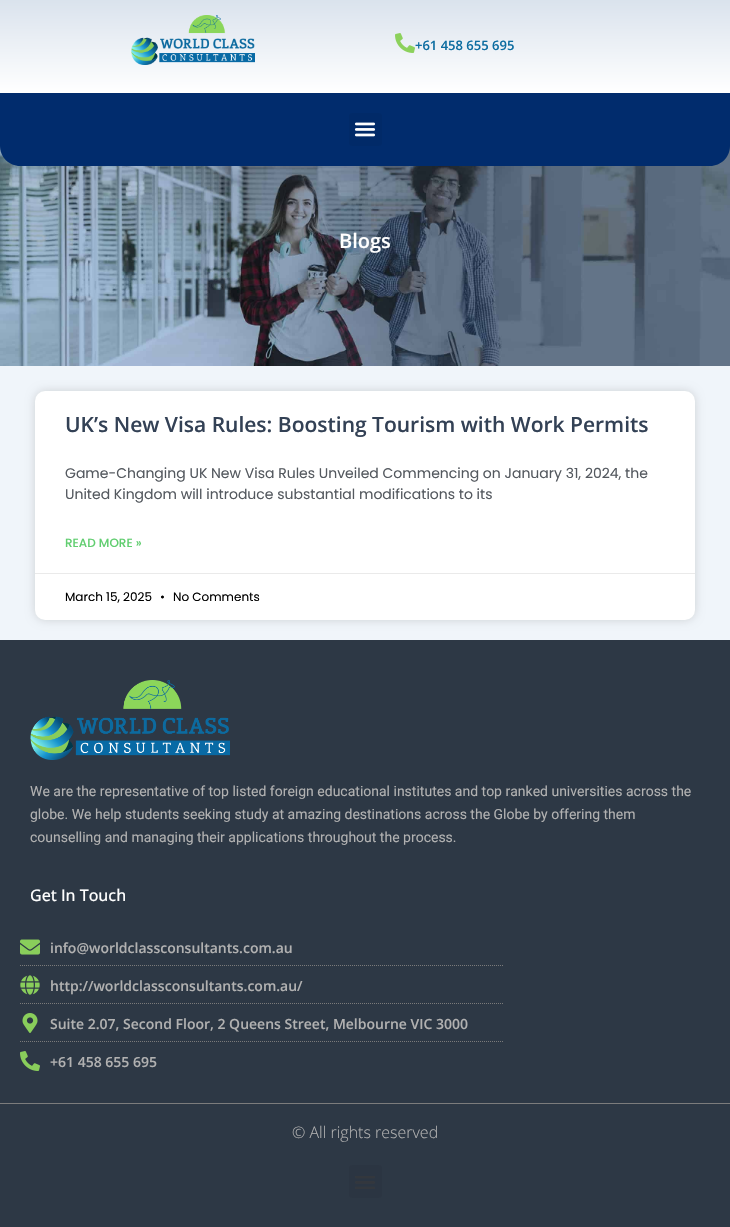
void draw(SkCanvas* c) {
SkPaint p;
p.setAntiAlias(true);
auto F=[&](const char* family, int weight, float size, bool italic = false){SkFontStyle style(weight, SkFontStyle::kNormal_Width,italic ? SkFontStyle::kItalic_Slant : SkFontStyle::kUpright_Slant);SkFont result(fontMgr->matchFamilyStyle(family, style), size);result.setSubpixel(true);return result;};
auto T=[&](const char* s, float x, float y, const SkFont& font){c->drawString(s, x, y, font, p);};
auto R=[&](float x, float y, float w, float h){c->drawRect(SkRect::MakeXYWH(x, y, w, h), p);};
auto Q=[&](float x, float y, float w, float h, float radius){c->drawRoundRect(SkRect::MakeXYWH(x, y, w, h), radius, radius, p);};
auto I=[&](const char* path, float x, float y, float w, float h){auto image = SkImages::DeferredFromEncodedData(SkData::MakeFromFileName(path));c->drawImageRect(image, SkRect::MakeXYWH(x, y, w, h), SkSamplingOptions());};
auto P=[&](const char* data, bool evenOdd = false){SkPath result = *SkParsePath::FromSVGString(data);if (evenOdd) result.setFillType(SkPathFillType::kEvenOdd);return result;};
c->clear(0xfff0f5fa);
{
const SkColor colors[] = {0xffd8e1ec,0xffffffff};
const float stops[] = {0,1};
const SkPoint ends[] = {{365,-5}, {365,93}};
p.setShader(SkGradientShader::MakeLinear(ends, colors, stops, 2, SkTileMode::kClamp));
p.setAlpha(255);
}
R(0,0,730,93);
I("1.png",131,15,124,50);
I("2.png",395,33,20,20);
auto f1 = F("Open Sans",600,13);
p.setShader(nullptr);
p.setColor(0xff0d6da1);
T("+61 458 655 695",415,50,f1);
I("4.png",0,146,730,220);
p.setColor(0xff012c6d);
c->drawPath(P("M0 93h730v53c0 11-9 20-20 20h-690c-11 0-20-9-20-20z"),p);
p.setColor(0xff012a68);
Q(349,113,33,33,3);
I("3.png",354,122,22,15);
auto f2 = F("Open Sans",600,20);
p.setColor(0xffffffff);
T("Blogs",339,248,f2);
p.setColor(0x26000000);
p.setMaskFilter(SkMaskFilter::MakeBlur(kNormal_SkBlurStyle, 5));
c->drawRoundRect(SkRect::MakeXYWH(35,391,660,229),10,10,p);
p.setMaskFilter(nullptr);
p.setColor(0xffffffff);
Q(35,391,660,229,10);
auto f3 = F("Open Sans",600,21);
p.setColor(0xff334155);
T("UK’s New Visa Rules: Boosting Tourism with Work Permits",65,432,f3);
auto f4 = F("Poppins",400,14);
p.setColor(0xff54595f);
T("Game-Changing UK New Visa Rules Unveiled Commencing on January 31, 2024, the",65,478,f4);
T("United Kingdom will introduce substantial modifications to its",65,499,f4);
auto f5 = F("Poppins",500,12);
p.setColor(0xff61ce70);
T("READ MORE »",65,547,f5);
p.setColor(0xffeaeaea);
R(35,573,660,1);
auto f6 = F("Poppins",400,12);
p.setColor(0xff000000);
T("March 15, 2025",65,601,f6);
T("•",160,601,f6);
T("No Comments",173,601,f6);
p.setColor(0xff2d3845);
R(0,640,730,463);
I("5.png",30,680,200,80);
auto f7 = F("Roboto",400,14);
p.setColor(0xffb1b1b1);
T("We are the representative of top listed foreign educational institutes and top ranked universities across the",30,796,f7);
T("globe. We help students seeking study at amazing destinations across the Globe by offering them",30,819,f7);
T("counselling and managing their applications throughout the process.",30,842,f7);
auto f8 = F("Open Sans",500,16);
p.setColor(0xffffffff);
T("Get In Touch",30,901,f8);
I("6.png",20,939,20,16);
auto f9 = F("Open Sans",600,14);
p.setColor(0xffb1b1b1);
T("info@worldclassconsultants.com.au",50,953,f9);
p.setStroke(true);
p.setStrokeWidth(1);
p.setColor(0xff7a7a7a);
p.setPathEffect(SkDashPathEffect::Make({{1,1}}, 0));
c->drawPath(P("M20 965.5h483"),p);
p.setPathEffect(nullptr);
I("7.png",20,975,20,20);
p.setStroke(false);
p.setColor(0xffb1b1b1);
T("http://worldclassconsultants.com.au/",50,991,f9);
p.setStroke(true);
p.setColor(0xff7a7a7a);
p.setPathEffect(SkDashPathEffect::Make({{1,1}}, 0));
c->drawPath(P("M20 1003.5h483"),p);
p.setPathEffect(nullptr);
I("8.png",22,1013,16,20);
p.setStroke(false);
p.setColor(0xffb1b1b1);
T("Suite 2.07, Second Floor, 2 Queens Street, Melbourne VIC 3000",50,1029,f9);
p.setStroke(true);
p.setColor(0xff7a7a7a);
p.setPathEffect(SkDashPathEffect::Make({{1,1}}, 0));
c->drawPath(P("M20 1041.5h483"),p);
p.setPathEffect(nullptr);
I("9.png",20,1051,20,20);
p.setStroke(false);
p.setColor(0xffb1b1b1);
T("+61 458 655 695",50,1067,f9);
p.setColor(0xff2d3845);
R(0,1104,730,123);
p.setColor(0xff7c7c7c);
R(0,1103,730,1);
auto f10 = F("Open Sans",300,16);
p.setColor(0xffb1b1b1);
T("© All rights reserved",292,1138,f10);
p.setColor(0xff2b3542);
Q(349,1165,33,33,3);
I("10.png",355,1176,20,13);
}
